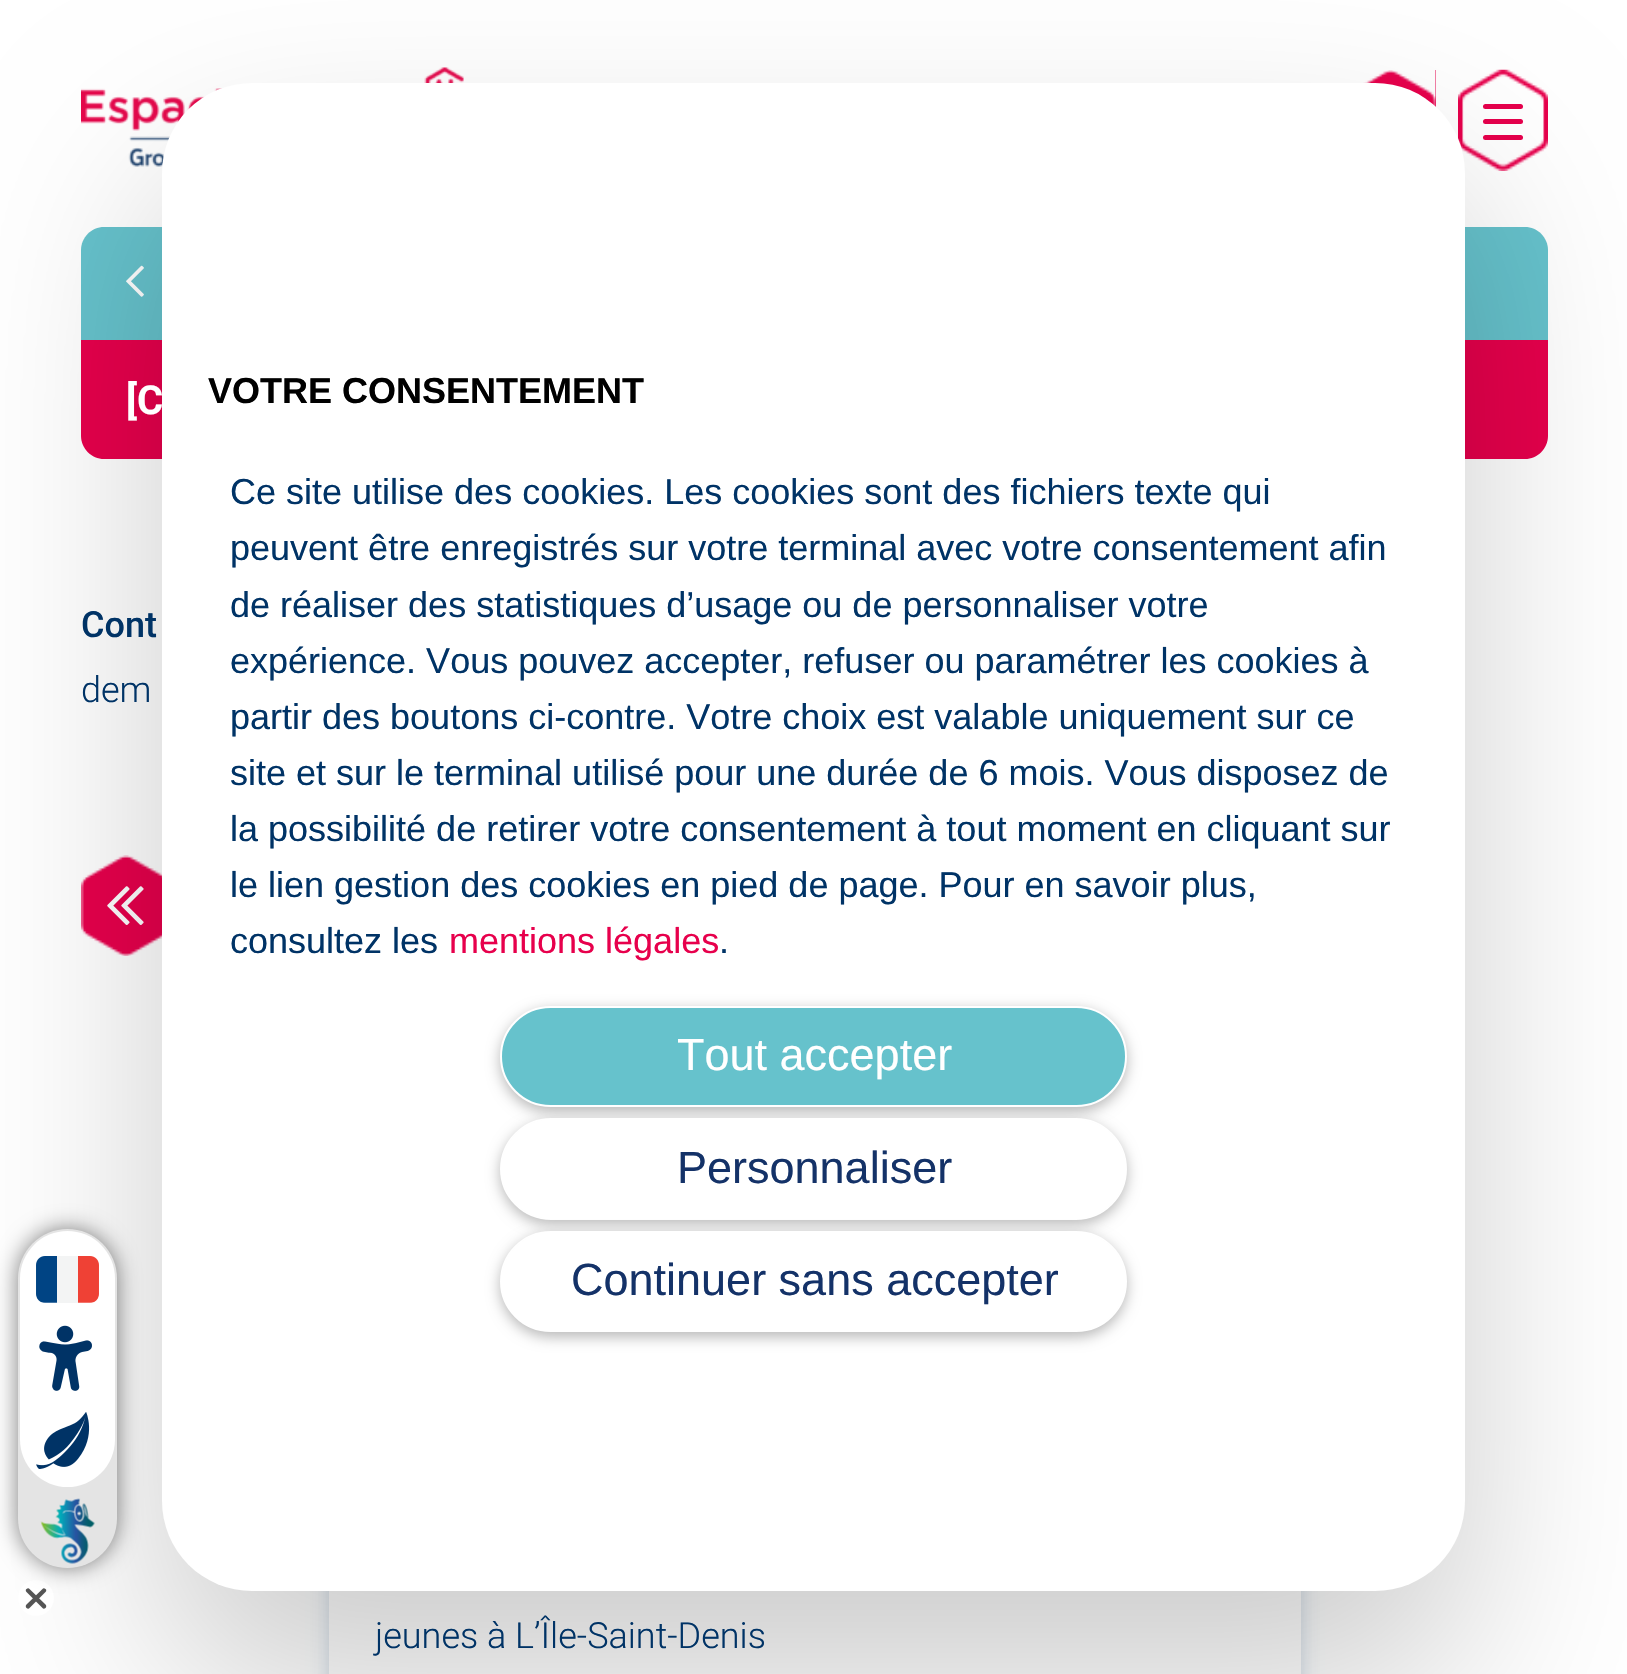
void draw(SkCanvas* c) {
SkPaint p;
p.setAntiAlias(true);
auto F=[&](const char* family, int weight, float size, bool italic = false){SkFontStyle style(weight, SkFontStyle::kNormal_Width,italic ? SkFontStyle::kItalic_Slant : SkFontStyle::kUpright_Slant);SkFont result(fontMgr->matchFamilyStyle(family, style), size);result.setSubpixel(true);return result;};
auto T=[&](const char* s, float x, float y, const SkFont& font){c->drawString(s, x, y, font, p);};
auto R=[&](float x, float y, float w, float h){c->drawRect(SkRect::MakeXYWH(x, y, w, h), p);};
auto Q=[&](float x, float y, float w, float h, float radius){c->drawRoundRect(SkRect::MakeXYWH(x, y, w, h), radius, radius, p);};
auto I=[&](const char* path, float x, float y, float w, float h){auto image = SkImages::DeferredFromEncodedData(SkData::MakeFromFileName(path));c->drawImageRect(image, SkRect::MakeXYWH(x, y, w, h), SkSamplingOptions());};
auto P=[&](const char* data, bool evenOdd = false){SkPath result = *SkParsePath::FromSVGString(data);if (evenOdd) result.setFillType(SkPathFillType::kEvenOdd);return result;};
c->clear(0xffffffff);
I("5.png",81,67,383,100);
p.setColor(0xffe7004c);
R(1363,70,73,37);
I("6.png",1346,70,90,37);
I("7.png",1458,69,90,102);
Q(1483,119,40,5,2.5);
Q(1483,104,40,5,2.5);
Q(1483,135,40,5,2.5);
p.setColor(0xff66c2cc);
c->drawPath(P("M104 227h1421c12.5 0 23 10.5 23 23v90h-1467v-90c0-12.5 10.5-23 23-23z"),p);
I("8.png",126,265,18,32);
p.setColor(0xffe7004c);
c->drawPath(P("M81 340h1467v96c0 12.5-10.5 23-23 23h-1421c-12.5 0-23-10.5-23-23z"),p);
R(81,855,81,101);
I("9.png",81,855,81,101);
I("10.png",107,886,37,39);
p.setColor(0x33000000);
p.setMaskFilter(SkMaskFilter::MakeBlur(kNormal_SkBlurStyle, 95.5));
c->drawRoundRect(SkRect::MakeXYWH(162,178,1303,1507),90,90,p);
p.setMaskFilter(nullptr);
c->save();
c->clipPath(P("M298 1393h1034v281h-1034zm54 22h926c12.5 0 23 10.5 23 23v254c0 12.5-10.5 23-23 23h-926c-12.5 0-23-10.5-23-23v-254c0-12.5 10.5-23 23-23z",true),true);
p.setColor(0x33003366);
p.setMaskFilter(SkMaskFilter::MakeBlur(kNormal_SkBlurStyle, 10));
c->drawRoundRect(SkRect::MakeXYWH(329,1424,972,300),23,23,p);
p.setMaskFilter(nullptr);
c->restore();
p.setColor(0xffffffff);
Q(162,83,1303,1508,90);
auto f1 = F("Liberation Sans",700,36);
p.setColor(0xff000000);
T("VOTRE CONSENTEMENT",208,403,f1);
auto f2 = F("Liberation Sans",400,36);
p.setColor(0xff003366);
T("Ce site utilise des cookies. Les cookies sont des fichiers texte qui",230,504,f2);
T("peuvent être enregistrés sur votre terminal avec votre consentement afin",230,560,f2);
T("de réaliser des statistiques d’usage ou de personnaliser votre",230,617,f2);
T("expérience. Vous pouvez accepter, refuser ou paramétrer les cookies à",230,673,f2);
T("partir des boutons ci-contre. Votre choix est valable uniquement sur ce",230,729,f2);
T("site et sur le terminal utilisé pour une durée de 6 mois. Vous disposez de",230,785,f2);
T("la possibilité de retirer votre consentement à tout moment en cliquant sur",230,841,f2);
T("le lien gestion des cookies en pied de page. Pour en savoir plus,",230,897,f2);
T("consultez les",230,953,f2);
p.setColor(0xffe7004c);
T("mentions légales",449,953,f2);
p.setColor(0xff003366);
T(".",719,953,f2);
p.setColor(0x47000000);
p.setMaskFilter(SkMaskFilter::MakeBlur(kNormal_SkBlurStyle, 7));
c->drawRoundRect(SkRect::MakeXYWH(500,1010,627,102),51,51,p);
p.setMaskFilter(nullptr);
p.setColor(0xff66c2cc);
c->drawRoundRect(SkRect::MakeXYWH(501,1007,625,99),49.5,49.5,p);
p.setStroke(true);
p.setStrokeWidth(2);
p.setColor(0xffffffff);
c->drawRoundRect(SkRect::MakeXYWH(501,1007,625,99),49.5,49.5,p);
auto f3 = F("Liberation Sans",400,45);
p.setStroke(false);
T("Tout accepter",677,1070,f3);
p.setColor(0x47000000);
p.setMaskFilter(SkMaskFilter::MakeBlur(kNormal_SkBlurStyle, 7));
c->drawRoundRect(SkRect::MakeXYWH(500,1123,627,101),50.5,50.5,p);
p.setMaskFilter(nullptr);
p.setColor(0xffffffff);
c->drawRoundRect(SkRect::MakeXYWH(501,1119,625,100),50,50,p);
p.setStroke(true);
c->drawRoundRect(SkRect::MakeXYWH(501,1119,625,100),50,50,p);
p.setStroke(false);
p.setColor(0xff143268);
T("Personnaliser",677,1183,f3);
p.setColor(0x47000000);
p.setMaskFilter(SkMaskFilter::MakeBlur(kNormal_SkBlurStyle, 7));
c->drawRoundRect(SkRect::MakeXYWH(500,1235,627,102),51,51,p);
p.setMaskFilter(nullptr);
p.setColor(0xffffffff);
c->drawRoundRect(SkRect::MakeXYWH(501,1232,625,99),49.5,49.5,p);
p.setStroke(true);
c->drawRoundRect(SkRect::MakeXYWH(501,1232,625,99),49.5,49.5,p);
p.setStroke(false);
p.setColor(0xff143268);
T("Continuer sans accepter",571,1295,f3);
p.setColor(0xffffffff);
c->drawCircle(36,1598,18,p);
p.setColor(0xff555555);
c->drawPath(P("M26.5 1589c1-1 2.5-1 3 0l16 15.5c1 1 1 2.5 0 3.5c-1 1-2.5 1-3 0l-16-16c-1-1-1-2.5 0-3z"),p);
c->drawPath(P("M45.5 1589c1 .5 1 2 0 3l-16 16c-.5 1-2 1-3 0c-1-1-1-2.5 0-3.5l16-15.5c.5-1 2-1 3 0z"),p);
p.setColor(0x80000000);
p.setMaskFilter(SkMaskFilter::MakeBlur(kNormal_SkBlurStyle, 11));
c->drawRoundRect(SkRect::MakeXYWH(18,1229,99,339),49.5,49.5,p);
p.setMaskFilter(nullptr);
p.setColor(0xffe4e4e4);
Q(18,1229,99,339,49.5);
p.setColor(0xffffffff);
Q(20,1231,95,256,47.5);
I("1.png",36,1256,63,47);
I("2.png",39,1325,53,66);
I("3.png",36,1412,54,57);
I("4.png",40,1498,55,66);
auto f4 = F("Roboto",700,40);
T("[C",126,414,f4);
auto f5 = F("Roboto",500,36);
p.setColor(0xff003366);
T("Cont",81,637,f5);
auto f6 = F("Roboto",300,36);
T("dem",81,702,f6);
T("jeunes à L’Île-Saint-Denis",375,1648,f6);
}
